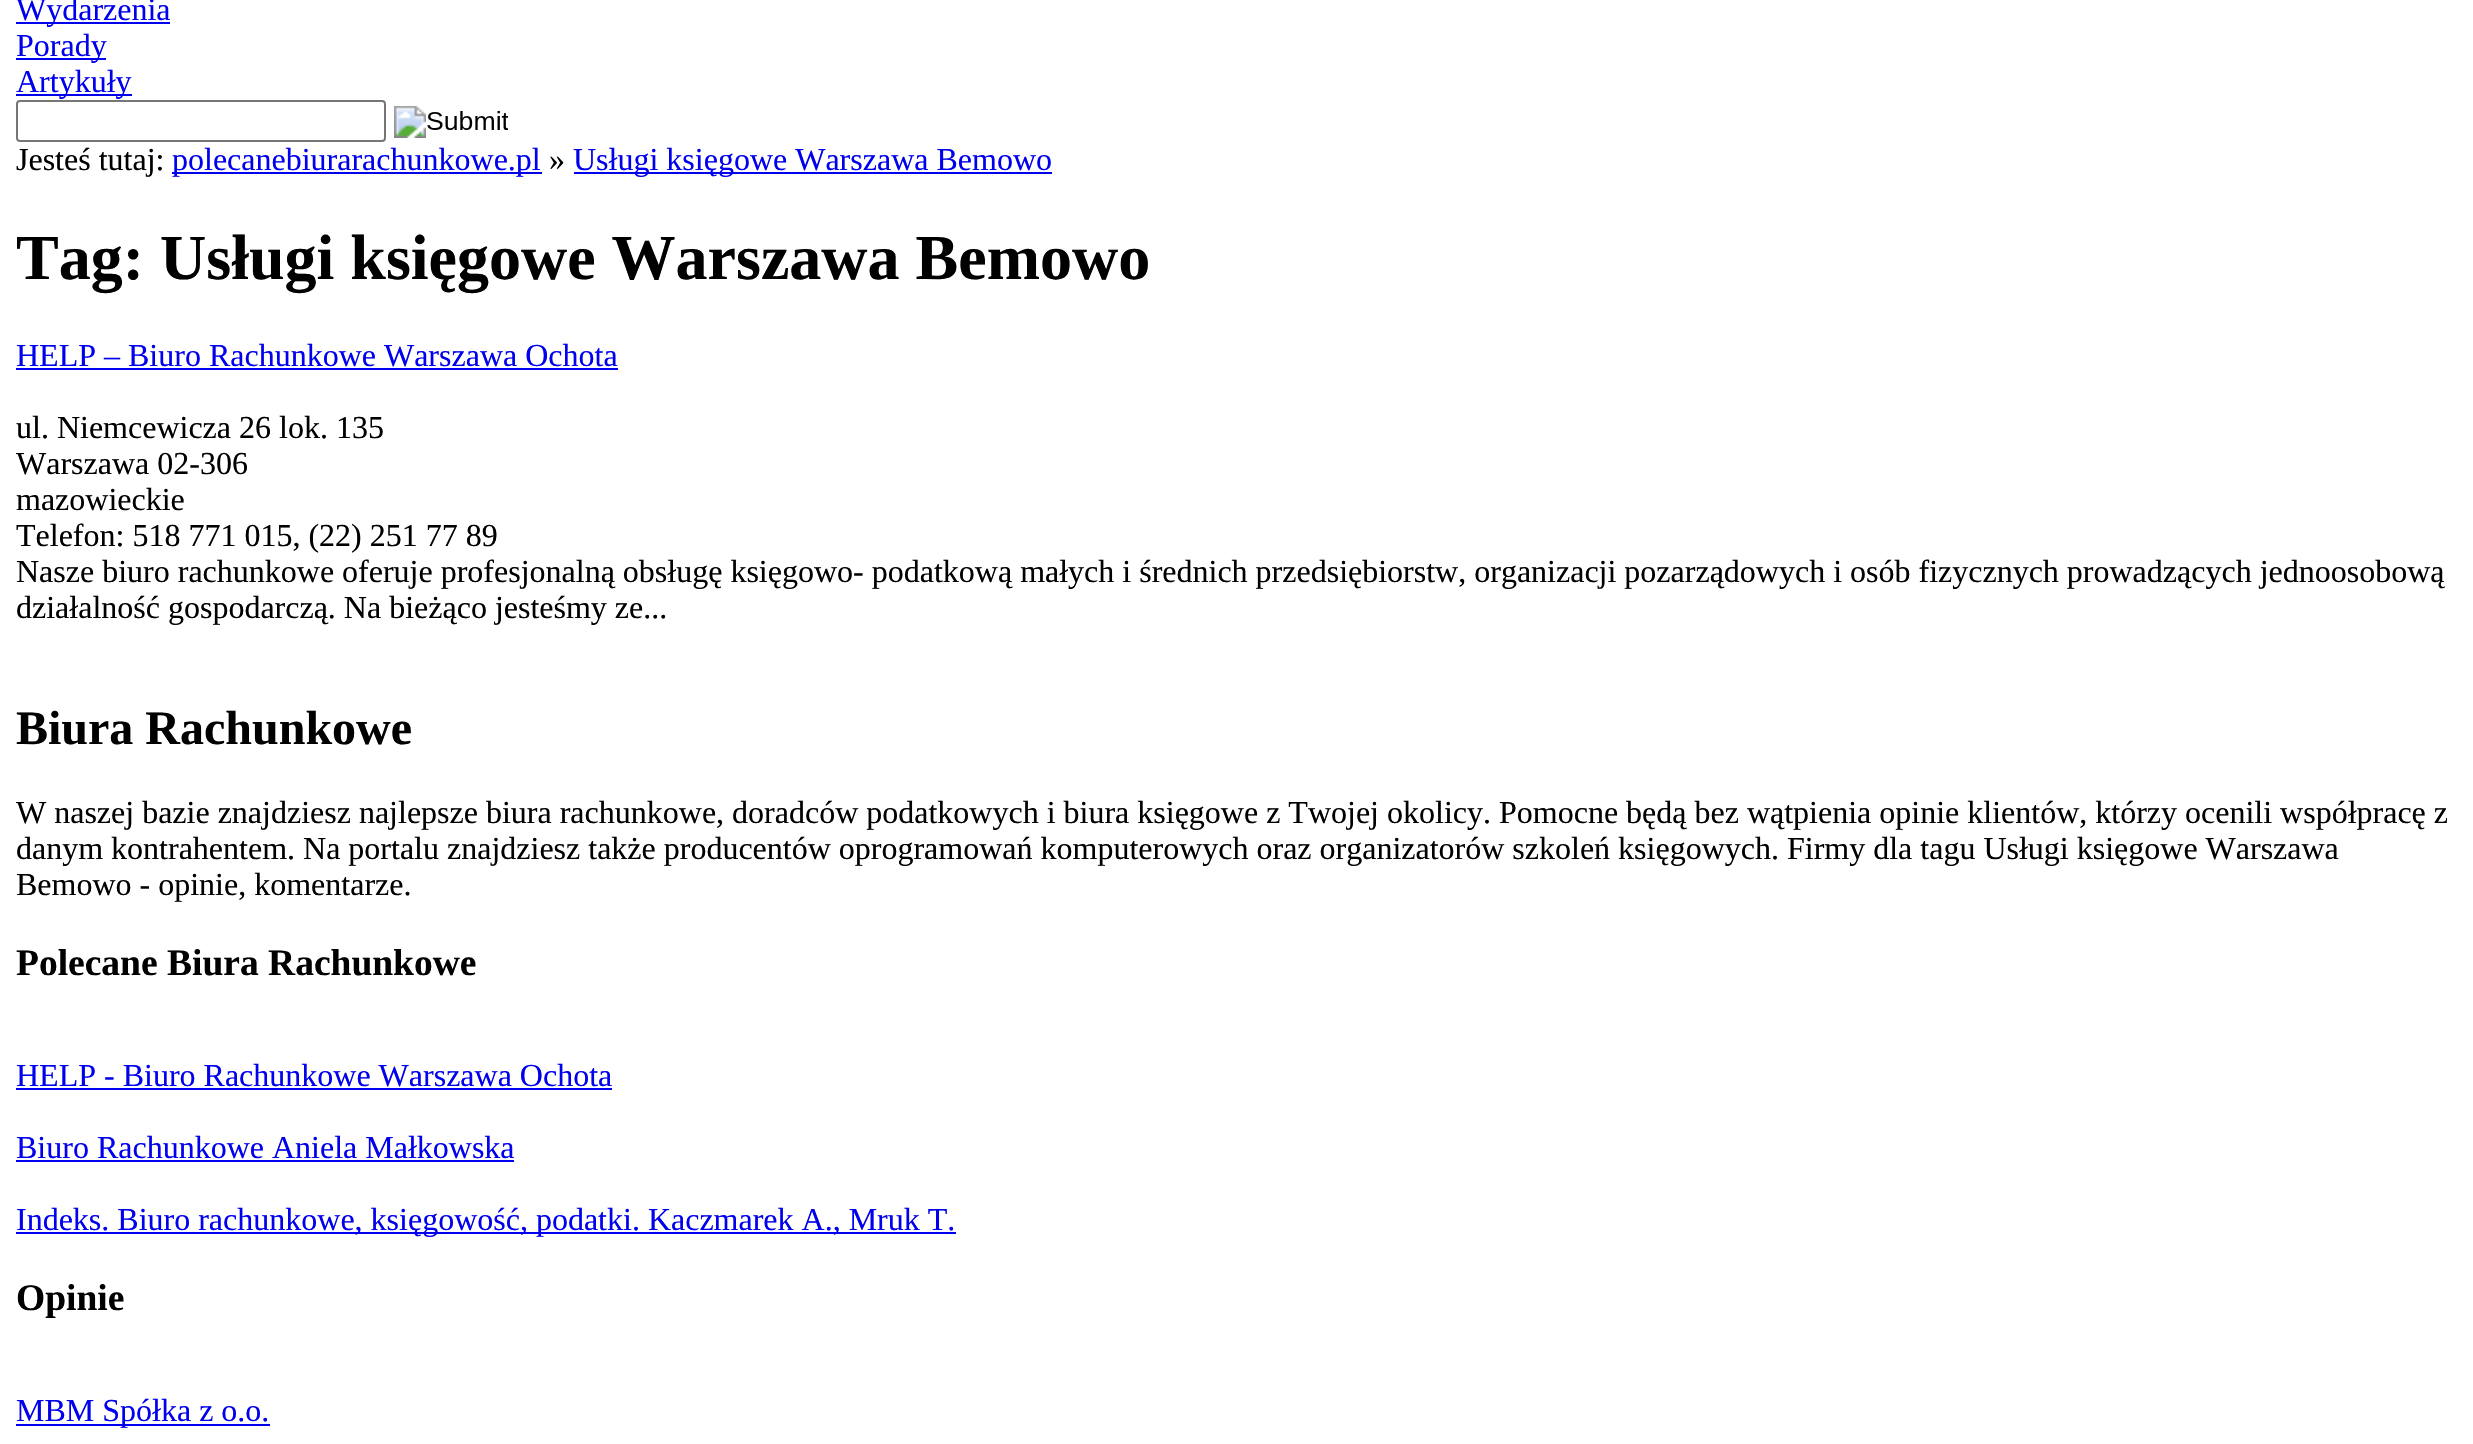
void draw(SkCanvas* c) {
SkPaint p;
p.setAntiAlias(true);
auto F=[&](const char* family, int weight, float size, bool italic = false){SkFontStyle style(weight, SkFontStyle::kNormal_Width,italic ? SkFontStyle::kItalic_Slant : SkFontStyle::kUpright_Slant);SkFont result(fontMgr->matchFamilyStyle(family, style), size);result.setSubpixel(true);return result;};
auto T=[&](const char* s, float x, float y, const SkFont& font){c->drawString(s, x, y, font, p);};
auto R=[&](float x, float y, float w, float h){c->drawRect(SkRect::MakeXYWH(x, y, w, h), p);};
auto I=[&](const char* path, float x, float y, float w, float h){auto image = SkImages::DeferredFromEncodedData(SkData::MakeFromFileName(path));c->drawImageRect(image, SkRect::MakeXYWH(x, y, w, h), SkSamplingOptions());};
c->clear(0xffffffff);
p.setColor(0xff0000ee);
R(16,22,154,2);
auto f1 = F("Liberation Serif",400,32);
T("Wydarzenia",16,20,f1);
R(16,58,90,2);
T("Porady",16,56,f1);
R(16,94,116,2);
T("Artykuły",16,92,f1);
p.setStroke(true);
p.setStrokeWidth(2);
p.setColor(0xff767676);
c->drawRoundRect(SkRect::MakeXYWH(17,101,368,40),3,3,p);
I("1.png",394,106,114,32);
p.setStroke(false);
p.setColor(0xff000000);
T("Jesteś tutaj:",16,170,f1);
p.setColor(0xff0000ee);
R(172,172,370,2);
T("polecanebiurarachunkowe.pl",172,170,f1);
p.setColor(0xff000000);
T("»",549,170,f1);
p.setColor(0xff0000ee);
R(574,172,478,2);
T("Usługi księgowe Warszawa Bemowo",573,170,f1);
auto f2 = F("Liberation Serif",700,64);
p.setColor(0xff000000);
T("Tag: Usługi księgowe Warszawa Bemowo",16,279,f2);
p.setColor(0xff0000ee);
T("HELP – Biuro Rachunkowe Warszawa Ochota",16,366,f1);
R(16,368,602,2);
p.setColor(0xff000000);
T("ul. Niemcewicza 26 lok. 135",16,438,f1);
T("Warszawa 02-306",16,474,f1);
T("mazowieckie",16,510,f1);
T("Telefon: 518 771 015, (22) 251 77 89",16,546,f1);
T("Nasze biuro rachunkowe oferuje profesjonalną obsługę księgowo- podatkową małych i średnich przedsiębiorstw, organizacji pozarządowych i osób fizycznych prowadzących jednoosobową",16,582,f1);
T("działalność gospodarczą. Na bieżąco jesteśmy ze...",16,618,f1);
auto f3 = F("Liberation Serif",700,48);
T("Biura Rachunkowe",16,744,f3);
T("W naszej bazie znajdziesz najlepsze biura rachunkowe, doradców podatkowych i biura księgowe z Twojej okolicy. Pomocne będą bez wątpienia opinie klientów, którzy ocenili współpracę z",16,823,f1);
T("danym kontrahentem. Na portalu znajdziesz także producentów oprogramowań komputerowych oraz organizatorów szkoleń księgowych. Firmy dla tagu Usługi księgowe Warszawa",16,859,f1);
T("Bemowo - opinie, komentarze.",16,895,f1);
auto f4 = F("Liberation Serif",700,37.5);
T("Polecane Biura Rachunkowe",16,975,f4);
p.setColor(0xff0000ee);
T("HELP - Biuro Rachunkowe Warszawa Ochota",16,1086,f1);
R(16,1088,596,2);
T("Biuro Rachunkowe Aniela Małkowska",16,1158,f1);
R(16,1160,498,2);
R(16,1232,940,2);
T("Indeks. Biuro rachunkowe, księgowość, podatki. Kaczmarek A., Mruk T.",16,1230,f1);
p.setColor(0xff000000);
T("Opinie",16,1310,f4);
p.setColor(0xff0000ee);
R(16,1424,254,2);
T("MBM Spółka z o.o.",16,1421,f1);
}
